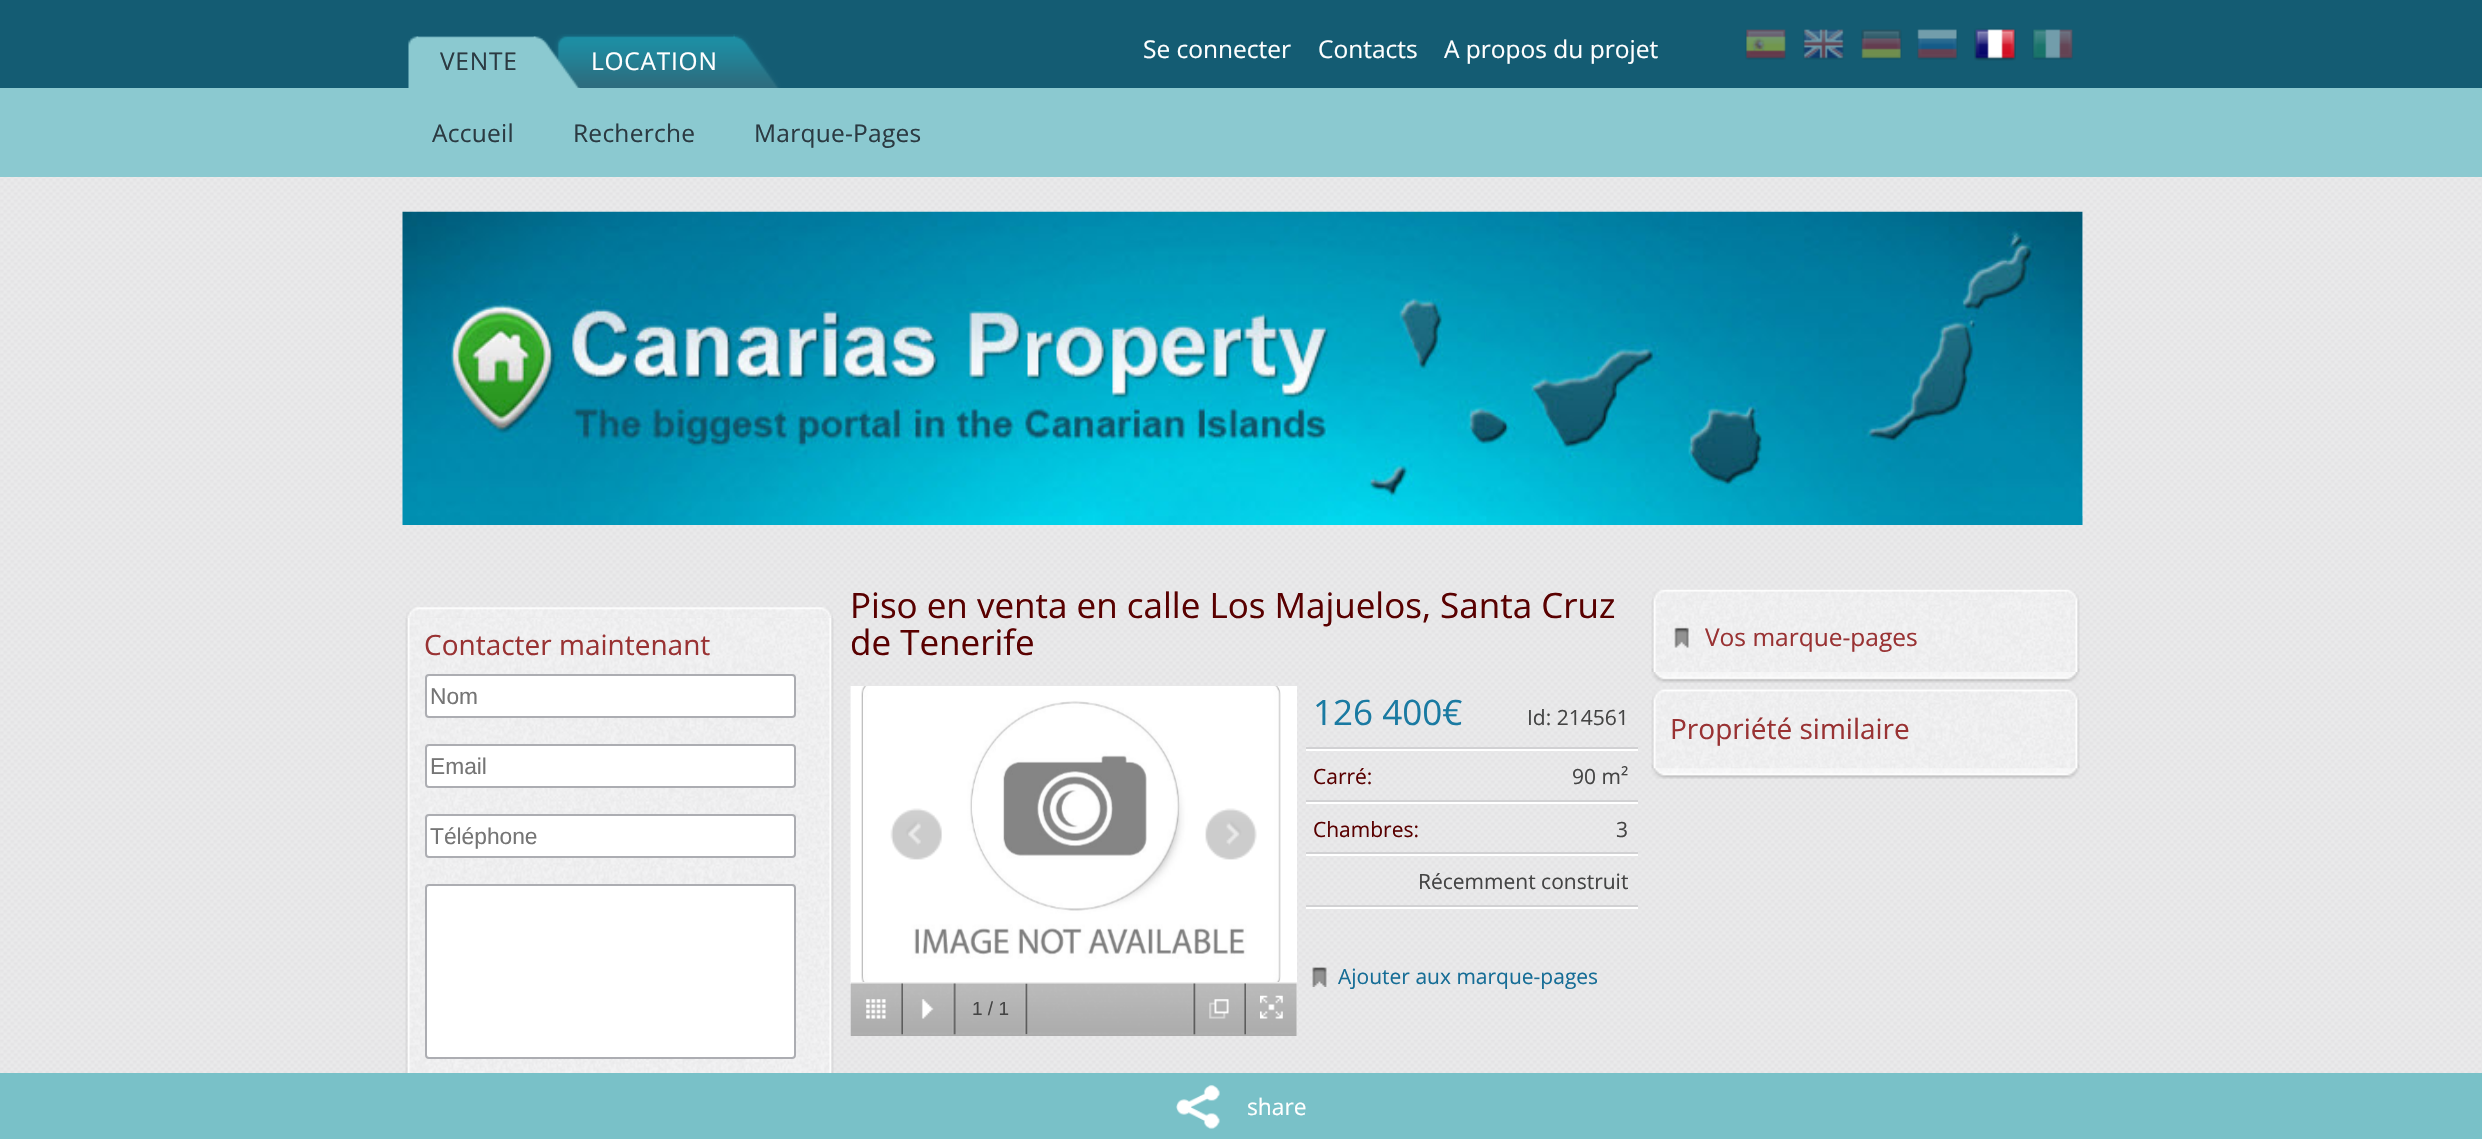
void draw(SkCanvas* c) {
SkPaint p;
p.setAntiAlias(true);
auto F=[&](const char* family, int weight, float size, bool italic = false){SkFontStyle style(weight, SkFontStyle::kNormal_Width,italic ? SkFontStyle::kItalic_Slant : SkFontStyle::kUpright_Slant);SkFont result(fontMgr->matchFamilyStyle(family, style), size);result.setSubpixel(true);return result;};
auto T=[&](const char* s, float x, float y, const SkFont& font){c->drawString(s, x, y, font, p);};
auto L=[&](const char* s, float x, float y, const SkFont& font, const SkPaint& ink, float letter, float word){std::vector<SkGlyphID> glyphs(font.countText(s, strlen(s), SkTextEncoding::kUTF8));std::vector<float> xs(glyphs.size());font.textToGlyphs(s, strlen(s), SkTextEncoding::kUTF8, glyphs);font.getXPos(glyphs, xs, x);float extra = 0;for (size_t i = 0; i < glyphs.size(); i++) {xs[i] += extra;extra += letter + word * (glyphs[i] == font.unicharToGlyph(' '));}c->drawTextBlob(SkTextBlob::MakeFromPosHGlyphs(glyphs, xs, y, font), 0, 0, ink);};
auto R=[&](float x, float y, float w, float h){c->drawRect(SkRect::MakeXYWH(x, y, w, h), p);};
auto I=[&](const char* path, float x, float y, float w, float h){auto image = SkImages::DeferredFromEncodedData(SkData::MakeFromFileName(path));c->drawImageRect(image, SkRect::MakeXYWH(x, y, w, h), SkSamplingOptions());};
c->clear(0xffffffff);
I("1.png",0,177,2482,896);
p.setColor(0xff145c73);
R(0,0,2482,88);
I("2.png",408,36,11,52);
I("5.png",554,34,13,42);
I("6.png",733,34,48,54);
I("7.png",567,34,168,54);
I("3.png",533,36,47,52);
I("4.png",416,36,120,52);
auto f1 = F("Open Sans",400,24.5);
p.setColor(0xff2b3a42);
L("VENTE",440,70,f1,p,.75,0);
p.setColor(0xffffffff);
L("LOCATION",591,70,f1,p,.75,0);
T("Se connecter",1143,58,f1);
T("Contacts",1318,58,f1);
T("A propos du projet",1444,58,f1);
I("8.png",1745,29,41,31);
I("9.png",1803,29,41,31);
I("10.png",1861,29,41,31);
I("11.png",1917,29,41,31);
I("12.png",1974,28,42,33);
I("13.png",2032,29,41,31);
p.setColor(0xff8bc9d0);
R(0,88,2482,89);
p.setColor(0xff2b3a42);
L("Accueil",432,142,f1,p,.25,0);
L("Recherche",573,142,f1,p,.25,0);
L("Marque-Pages",754,142,f1,p,.25,0);
p.setColor(0xffffffff);
R(2082,212,1,304);
I("14.png",402,211,1681,314);
I("15.png",406,607,427,11);
I("16.png",405,618,429,455);
auto f2 = F("Open Sans",400,28);
p.setColor(0xff993233);
T("Contacter maintenant",424,655,f2);
p.setColor(0xffffffff);
c->drawRoundRect(SkRect::MakeXYWH(426,675,369,42),3,3,p);
p.setStroke(true);
p.setStrokeWidth(2);
p.setColor(0xffacadb2);
c->drawRoundRect(SkRect::MakeXYWH(426,675,369,42),3,3,p);
auto f3 = F("Liberation Sans",400,22.75);
p.setStroke(false);
p.setColor(0xff757575);
T("Nom",430,704,f3);
p.setColor(0xffffffff);
c->drawRoundRect(SkRect::MakeXYWH(426,745,369,42),3,3,p);
p.setStroke(true);
p.setColor(0xffacadb2);
c->drawRoundRect(SkRect::MakeXYWH(426,745,369,42),3,3,p);
p.setStroke(false);
p.setColor(0xff757575);
T("Email",430,774,f3);
p.setColor(0xffffffff);
c->drawRoundRect(SkRect::MakeXYWH(426,815,369,42),3,3,p);
p.setStroke(true);
p.setColor(0xffacadb2);
c->drawRoundRect(SkRect::MakeXYWH(426,815,369,42),3,3,p);
p.setStroke(false);
p.setColor(0xff757575);
T("Téléphone",430,844,f3);
p.setColor(0xffffffff);
c->drawRoundRect(SkRect::MakeXYWH(426,885,369,173),3,3,p);
p.setStroke(true);
p.setColor(0xffacadb2);
c->drawRoundRect(SkRect::MakeXYWH(426,885,369,173),3,3,p);
auto f4 = F("Open Sans",400,35);
p.setStroke(false);
p.setColor(0xff590000);
T("Piso en venta en calle Los Majuelos, Santa Cruz",850,618,f4);
T("de Tenerife",850,655,f4);
p.setColor(0xffd1d1d3);
R(1306,747,332,2);
p.setColor(0xff1a7aa2);
T("126 400€",1313,725,f4);
auto f5 = F("Open Sans",400,21);
p.setColor(0xff444444);
T("Id: 214561",1527,725,f5);
p.setColor(0xffffffff);
R(1306,749,332,2);
p.setColor(0xffd1d1d3);
R(1306,800,332,2);
p.setColor(0xff590000);
T("Carré:",1313,784,f5);
p.setColor(0xff444444);
T("90 m²",1572,784,f5);
p.setColor(0xffffffff);
R(1306,802,332,2);
p.setColor(0xffd1d1d3);
R(1306,852,332,2);
p.setColor(0xff590000);
T("Chambres:",1313,837,f5);
p.setColor(0xff444444);
T("3",1616,837,f5);
p.setColor(0xffffffff);
R(1306,854,332,2);
p.setColor(0xffd1d1d3);
R(1306,905,332,2);
p.setColor(0xff444444);
T("Récemment construit",1418,889,f5);
p.setColor(0xffffffff);
R(1306,907,332,2);
I("17.png",1312,967,15,20);
p.setColor(0xff166d96);
T("Ajouter aux marque-pages",1338,984,f5);
I("18.png",850,686,447,298);
I("19.png",890,808,52,52);
I("20.png",1205,808,52,52);
p.setColor(0xffeeeeee);
R(851,982,446,54);
I("21.png",850,983,447,53);
I("22.png",866,999,20,20);
I("23.png",901,983,2,52);
I("24.png",921,999,13,20);
I("25.png",952,983,4,52);
I("26.png",1024,983,4,52);
auto f6 = F("Liberation Sans",400,19);
p.setColor(0xff444444);
T("1 / 1",972,1015,f6);
I("27.png",1192,983,4,52);
I("28.png",1209,999,20,20);
I("29.png",1244,983,2,52);
I("30.png",1260,995,23,24);
I("31.png",1651,668,429,15);
I("32.png",1652,589,427,12);
I("33.png",1651,600,429,72);
I("34.png",1674,627,15,21);
p.setColor(0xff993233);
T("Vos marque-pages",1705,646,f1);
I("35.png",1651,764,429,15);
I("36.png",1652,689,427,11);
I("37.png",1651,700,429,69);
T("Propriété similaire",1670,739,f2);
p.setColor(0xff79c1c8);
R(0,1073,2482,66);
I("38.png",1176,1085,44,44);
auto f7 = F("Open Sans",400,22.75);
p.setColor(0xffffffff);
T("share",1247,1115,f7);
}
